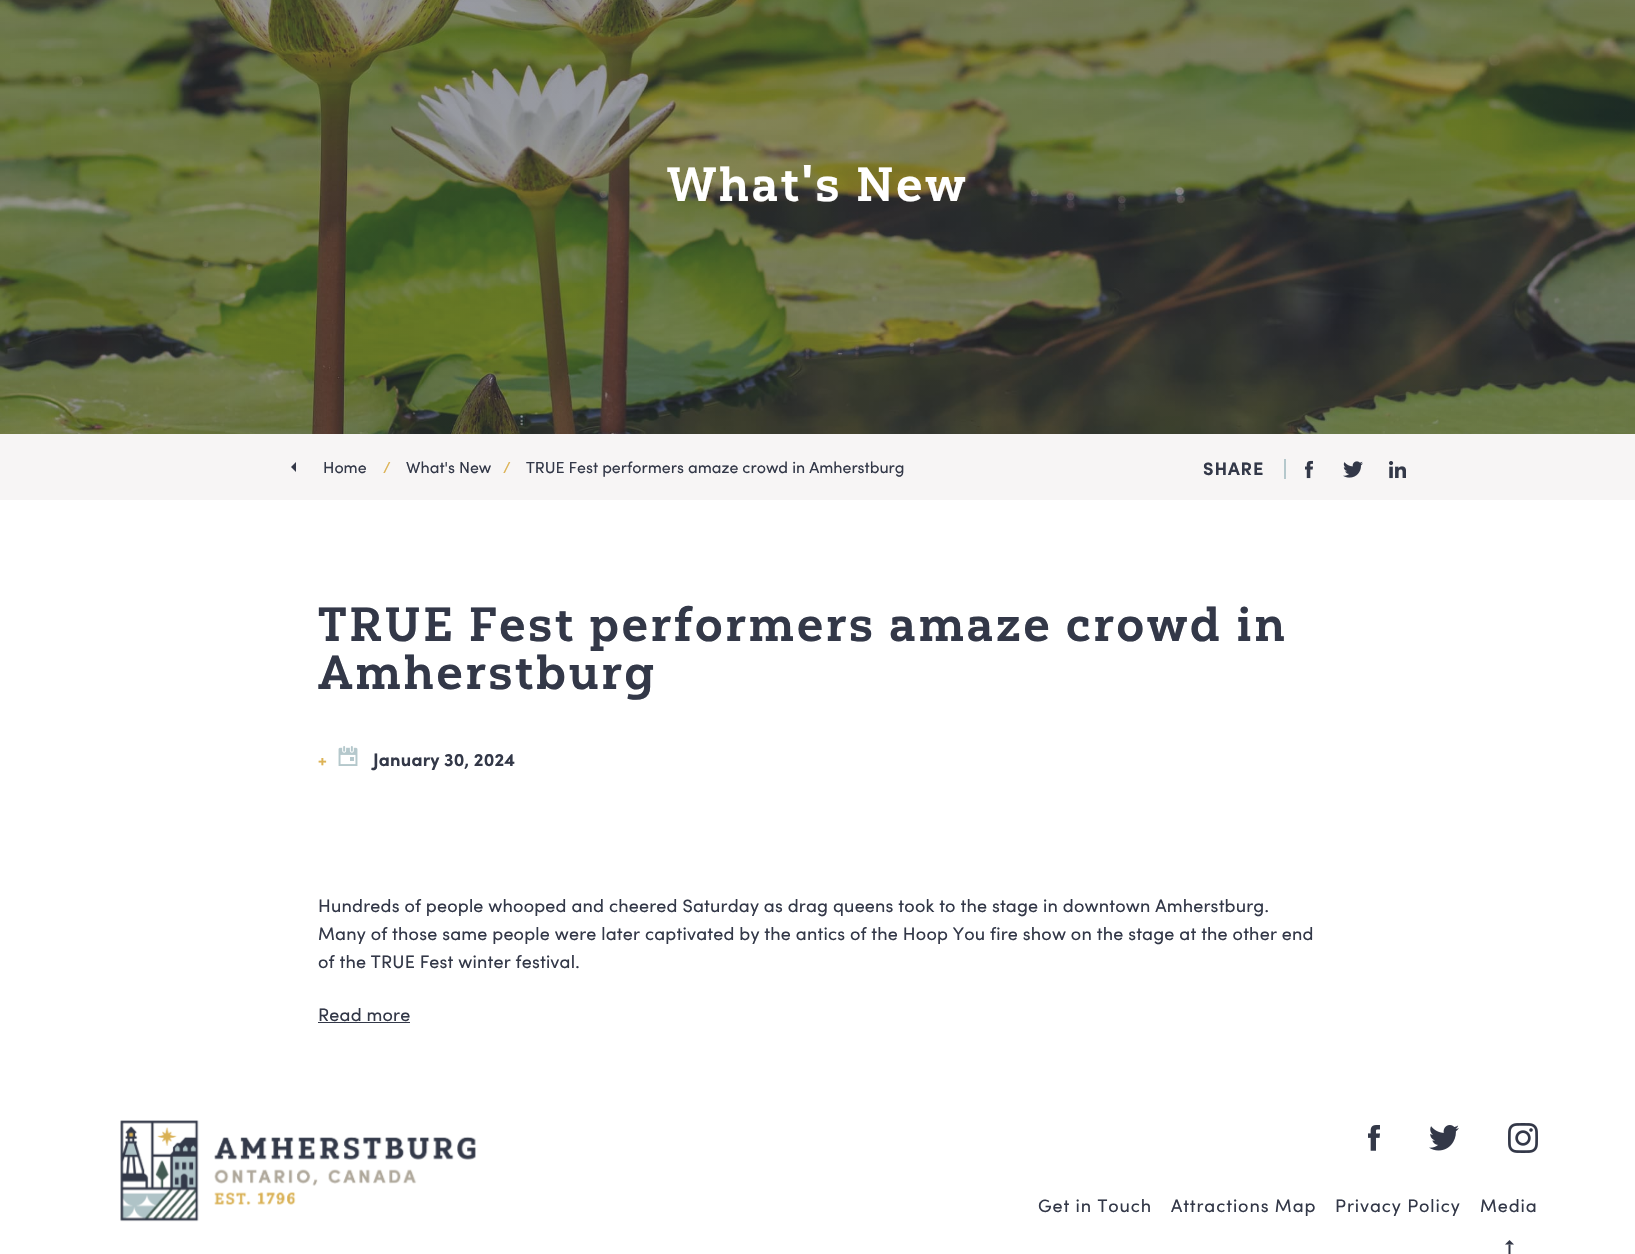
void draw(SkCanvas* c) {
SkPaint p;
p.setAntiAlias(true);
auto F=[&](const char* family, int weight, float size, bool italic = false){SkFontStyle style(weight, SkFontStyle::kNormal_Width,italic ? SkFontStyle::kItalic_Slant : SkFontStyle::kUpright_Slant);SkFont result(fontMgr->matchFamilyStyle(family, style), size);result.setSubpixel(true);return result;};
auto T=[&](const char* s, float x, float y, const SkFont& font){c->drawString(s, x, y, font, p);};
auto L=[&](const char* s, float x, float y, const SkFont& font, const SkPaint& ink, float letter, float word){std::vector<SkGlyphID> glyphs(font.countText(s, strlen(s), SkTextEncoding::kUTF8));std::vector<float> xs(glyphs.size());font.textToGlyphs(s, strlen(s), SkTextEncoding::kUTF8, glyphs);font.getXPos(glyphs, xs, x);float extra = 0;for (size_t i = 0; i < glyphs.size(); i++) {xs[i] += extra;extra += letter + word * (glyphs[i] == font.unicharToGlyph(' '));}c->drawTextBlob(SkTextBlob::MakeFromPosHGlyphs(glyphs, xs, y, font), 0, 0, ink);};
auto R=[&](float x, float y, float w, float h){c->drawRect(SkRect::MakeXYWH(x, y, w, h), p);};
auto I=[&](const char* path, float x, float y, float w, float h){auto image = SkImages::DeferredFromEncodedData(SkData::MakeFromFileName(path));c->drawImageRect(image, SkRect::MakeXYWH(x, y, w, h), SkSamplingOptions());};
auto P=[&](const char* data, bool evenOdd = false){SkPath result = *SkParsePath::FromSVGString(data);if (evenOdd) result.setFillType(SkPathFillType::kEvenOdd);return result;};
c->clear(0xffffffff);
I("1.png",0,0,1635,434);
auto f1 = F("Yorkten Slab",800,48);
p.setColor(0xffffffff);
L("What's New",667,201,f1,p,2.4,0);
p.setColor(0xfff7f5f5);
R(0,434,1635,66);
p.setColor(0xff333848);
c->drawPath(P("M296 462v10l-5-5z"),p);
auto f2 = F("Sofia",400,16);
T("Home",323,473,f2);
p.setColor(0xffddb355);
T("/",383,473,f2);
p.setColor(0xff333848);
T("What's New",406,473,f2);
p.setColor(0xffddb355);
T("/",503,473,f2);
p.setColor(0xff333848);
T("TRUE Fest performers amaze crowd in Amherstburg",526,473,f2);
auto f3 = F("Sofia",700,18);
L("SHARE",1203,475,f3,p,.9,0);
p.setColor(0xffb5c8cc);
R(1284,459,2,20);
I("2.png",1305,460,8,19);
I("3.png",1343,461,20,17);
I("4.png",1389,461,17,18);
p.setColor(0xff333848);
L("TRUE Fest performers amaze crowd in",318,641,f1,p,2.4,0);
L("Amherstburg",318,689,f1,p,2.4,0);
p.setColor(0xffddb355);
L("+",318,766,f3,p,.18,0);
I("5.png",338,746,20,20);
p.setColor(0xff333848);
L("January 30, 2024",373,766,f3,p,.18,0);
auto f4 = F("Sofia",400,18);
L("Hundreds of people whooped and cheered Saturday as drag queens took to the stage in downtown Amherstburg.",318,912,f4,p,.18,0);
L("Many of those same people were later captivated by the antics of the Hoop You fire show on the stage at the other end",318,940,f4,p,.18,0);
L("of the TRUE Fest winter festival.",318,968,f4,p,.18,0);
L("Read more",318,1021,f4,p,.18,0);
R(318,1022,92,1);
I("6.png",120,1120,356,102);
I("7.png",1368,1125,12,26);
I("8.png",1429,1125,30,26);
I("9.png",1508,1123,30,30);
L("Get in Touch",1038,1212,f4,p,.9,0);
L("Attractions Map",1171,1212,f4,p,.9,0);
L("Privacy Policy",1335,1212,f4,p,.9,0);
L("Media",1480,1212,f4,p,.9,0);
I("10.png",1505,1240,9,14);
}
